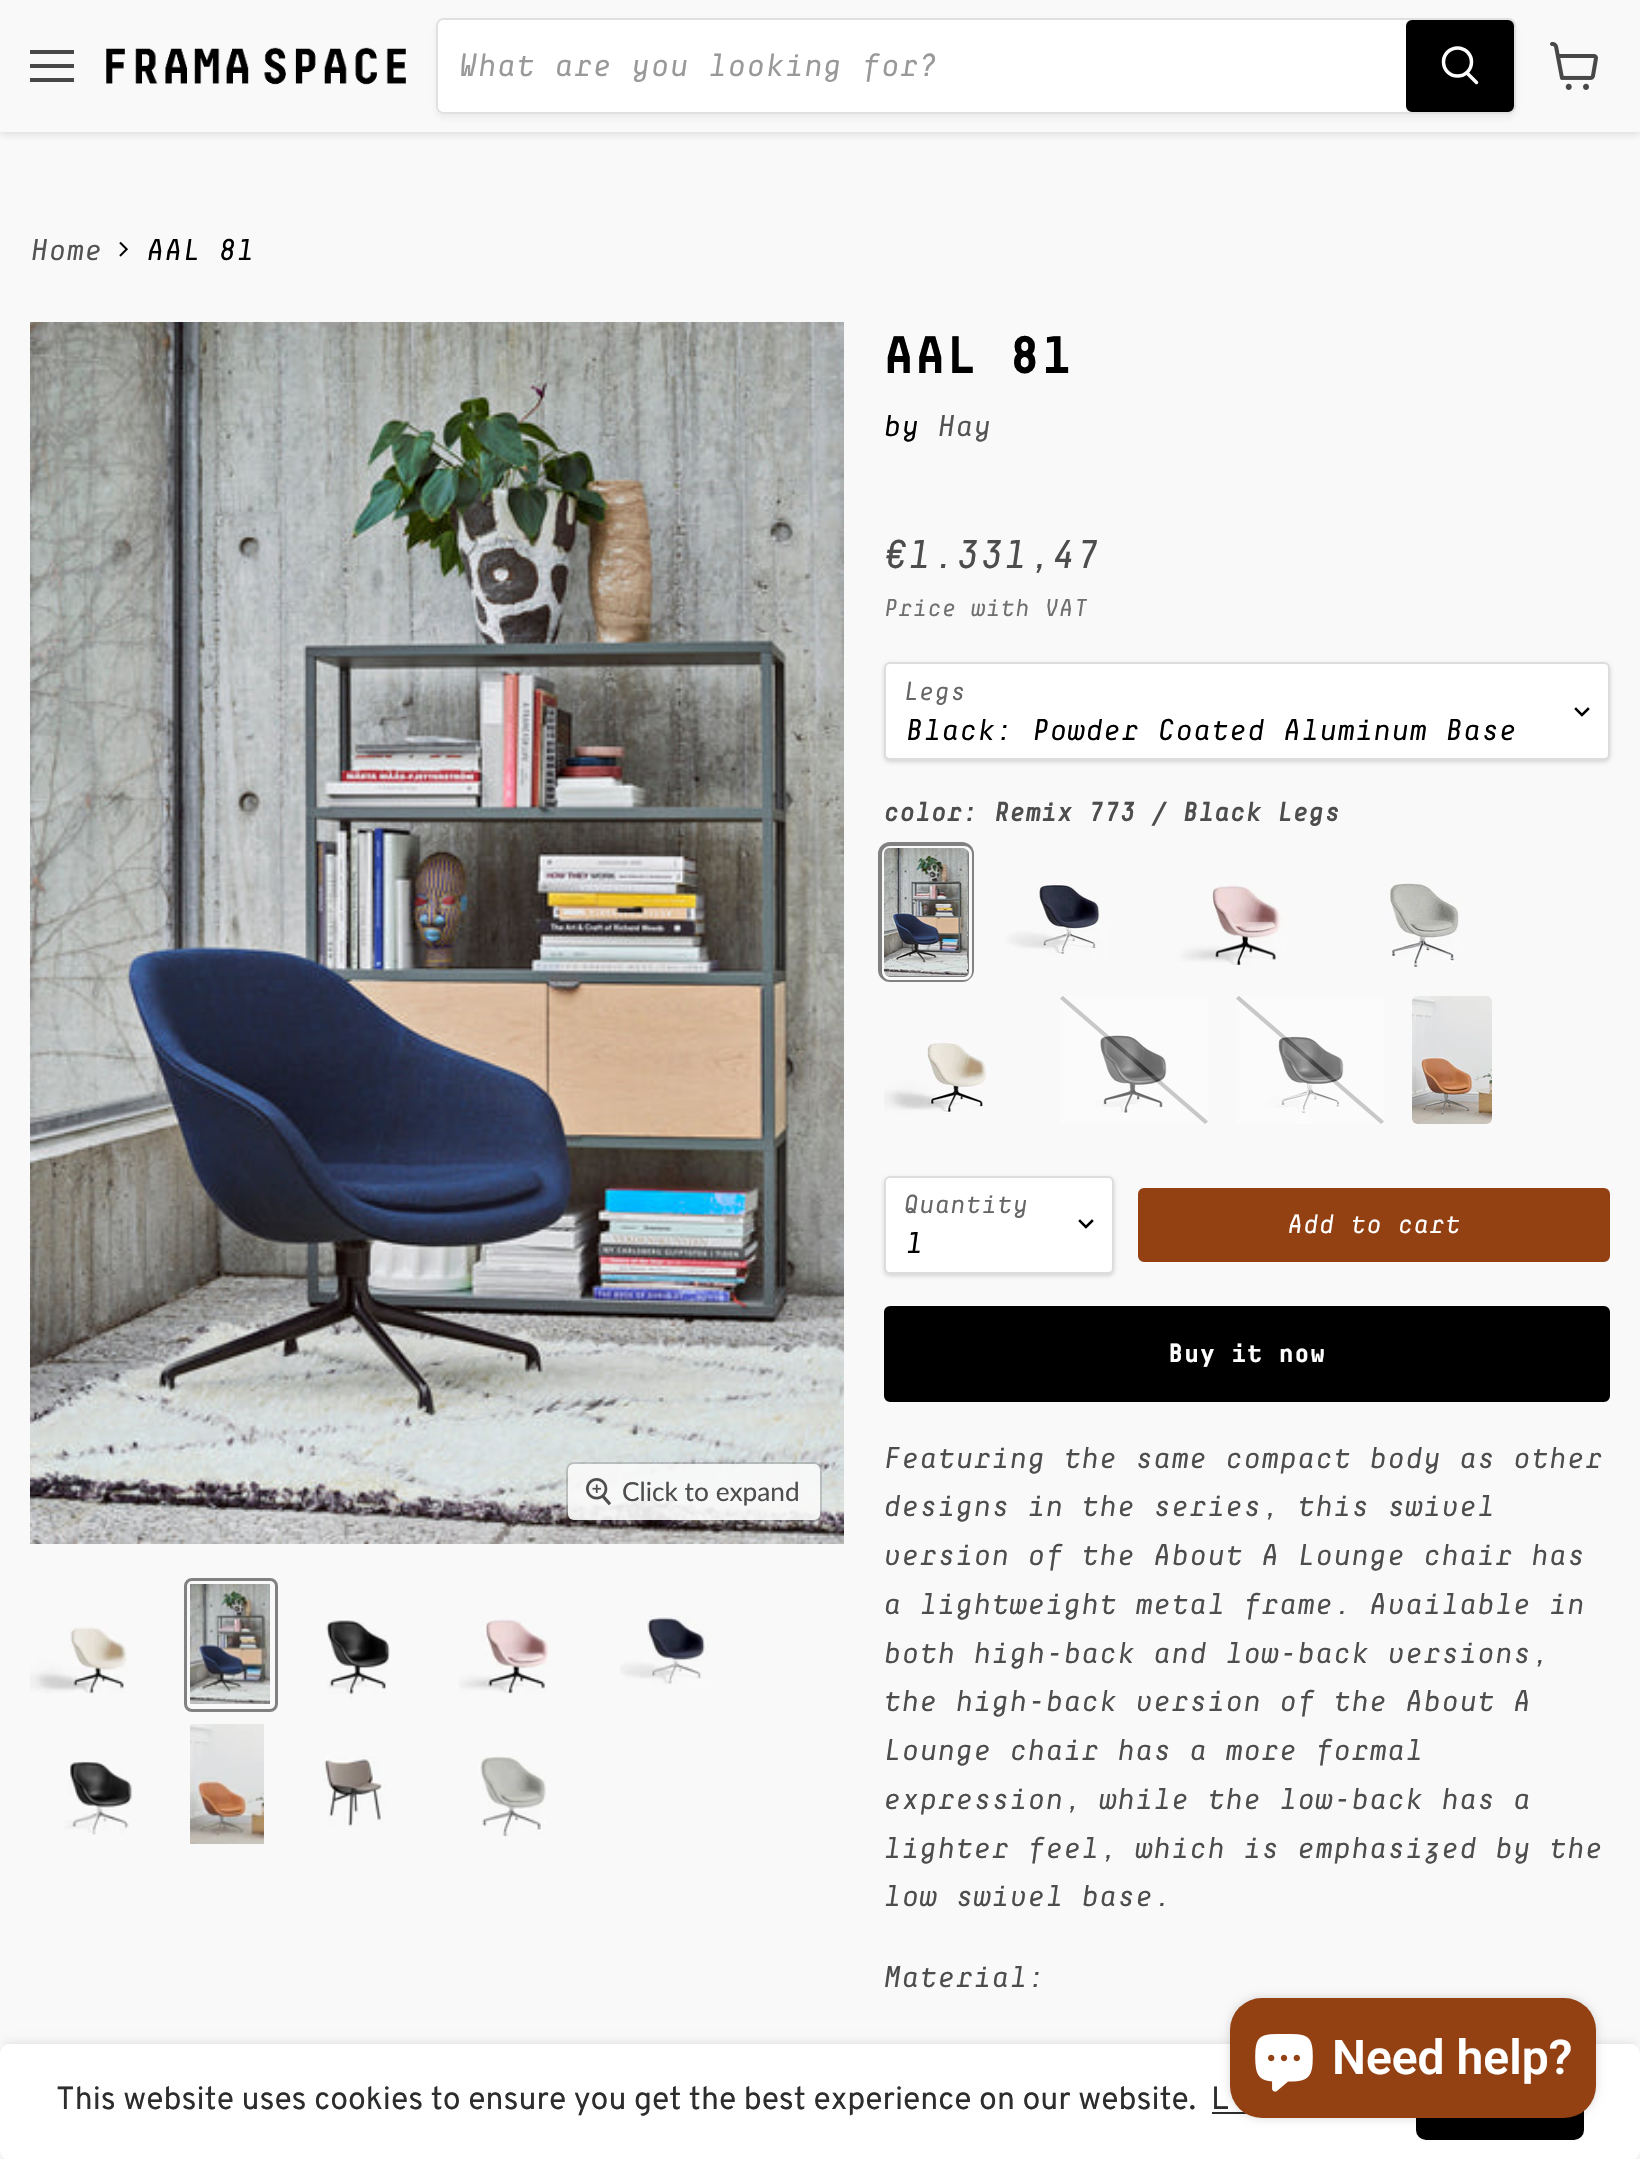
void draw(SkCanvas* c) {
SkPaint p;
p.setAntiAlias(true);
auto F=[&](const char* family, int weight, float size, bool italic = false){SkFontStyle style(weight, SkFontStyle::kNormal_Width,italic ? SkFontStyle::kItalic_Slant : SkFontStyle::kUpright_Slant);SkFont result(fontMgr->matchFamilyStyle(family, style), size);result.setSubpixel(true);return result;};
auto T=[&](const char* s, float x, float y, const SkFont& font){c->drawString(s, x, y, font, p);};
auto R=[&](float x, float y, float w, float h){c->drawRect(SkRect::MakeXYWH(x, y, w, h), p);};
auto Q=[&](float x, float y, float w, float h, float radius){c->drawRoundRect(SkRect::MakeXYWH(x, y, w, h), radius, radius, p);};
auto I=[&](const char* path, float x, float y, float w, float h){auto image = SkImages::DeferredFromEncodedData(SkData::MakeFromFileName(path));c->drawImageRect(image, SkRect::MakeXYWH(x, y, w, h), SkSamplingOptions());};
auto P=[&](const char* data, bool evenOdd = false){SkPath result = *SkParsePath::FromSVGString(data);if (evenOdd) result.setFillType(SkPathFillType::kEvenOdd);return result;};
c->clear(0xfff9f9f9);
c->save();
c->clipRect(SkRect::MakeXYWH(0,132,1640,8));
p.setColor(0x407d7d7d);
p.setMaskFilter(SkMaskFilter::MakeBlur(kNormal_SkBlurStyle, 4));
c->drawRect(SkRect::MakeXYWH(0,2,1640,132),p);
p.setMaskFilter(nullptr);
c->restore();
p.setColor(0xff484848);
R(30,50,44,4);
R(30,64,44,4);
R(30,78,44,4);
I("1.png",106,47,300,38);
c->save();
c->clipPath(P("M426 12h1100v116h-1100zm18 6h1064c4.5 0 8 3.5 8 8v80c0 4.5-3.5 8-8 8h-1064c-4.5 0-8-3.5-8-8v-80c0-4.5 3.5-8 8-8z",true),true);
p.setColor(0x1c7d7d7d);
p.setMaskFilter(SkMaskFilter::MakeBlur(kNormal_SkBlurStyle, 3));
c->drawRoundRect(SkRect::MakeXYWH(436,22,1080,96),8,8,p);
p.setMaskFilter(nullptr);
c->restore();
p.setStroke(true);
p.setStrokeWidth(2);
p.setColor(0x337d7d7d);
c->drawRoundRect(SkRect::MakeXYWH(437,19,1078,94),7,7,p);
p.setStroke(false);
p.setColor(0xffffffff);
c->drawPath(P("M444 20h962v92h-962c-3.5 0-6-2.5-6-6v-80c0-3.5 2.5-6 6-6z"),p);
auto f1 = F("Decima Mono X",400,32,true);
p.setColor(0xff999999);
T("What are you looking for?",458,76,f1);
p.setColor(0xff000000);
c->drawRoundRect(SkRect::MakeXYWH(1407,21,106,90),5,5,p);
p.setStroke(true);
c->drawRoundRect(SkRect::MakeXYWH(1407,21,106,90),5,5,p);
p.setStrokeWidth(3.5);
p.setStrokeCap(SkPaint::kRound_Cap);
p.setColor(0xffffffff);
c->drawPath(P("M1476.5 82.5l-9.5-9.5"),p);
p.setStrokeCap(SkPaint::kButt_Cap);
c->drawCircle(1457.5,62,14,p);
I("2.png",1550,42,48,48);
auto f2 = F("Decima Mono X",400,30,true);
p.setStroke(false);
p.setColor(0xff535353);
T("Home",30,260,f2);
I("3.png",119,241,9,16);
p.setColor(0xff000000);
T("AAL 81",146,260,f2);
I("4.png",30,322,814,1222);
p.setStroke(true);
p.setStrokeWidth(2);
p.setColor(0x26000000);
c->drawRoundRect(SkRect::MakeXYWH(567,1463,254,58),7,7,p);
p.setStroke(false);
p.setColor(0xe6f9f9f9);
Q(568,1464,252,56,6);
I("5.png",586,1478,25,28);
auto f3 = F("Lato",400,26.25);
p.setColor(0xff4d4d4d);
T("Click to expand",622,1501,f3);
I("6.png",30,1627,97,67);
p.setStroke(true);
p.setStrokeWidth(3);
p.setColor(0xff818181);
c->drawRoundRect(SkRect::MakeXYWH(185.5,1579.5,91,131),6.5,6.5,p);
I("7.png",190,1584,80,120);
I("8.png",326,1619,64,80);
I("9.png",459,1619,90,75);
I("10.png",620,1616,89,70);
I("11.png",65,1761,67,74);
I("12.png",190,1724,74,120);
I("13.png",323,1756,63,71);
I("14.png",479,1756,67,81);
auto f4 = F("Decima Mono X",700,52.5);
p.setStroke(false);
p.setColor(0xff000000);
T("AAL 81",883,373,f4);
T("by",883,436,f2);
p.setColor(0xff535353);
T("Hay",937,436,f2);
auto f5 = F("Decima Mono X",400,40,true);
p.setColor(0xff4d4d4d);
T("€1.331,47",883,568,f5);
auto f6 = F("Decima Mono X",400,24.4,true);
p.setColor(0xff6f6f6f);
T("Price with VAT",883,616,f6);
p.setColor(0x26000000);
p.setMaskFilter(SkMaskFilter::MakeBlur(kNormal_SkBlurStyle, 2));
c->drawRoundRect(SkRect::MakeXYWH(884,664,726,98),6,6,p);
p.setMaskFilter(nullptr);
p.setColor(0xffffffff);
c->drawRoundRect(SkRect::MakeXYWH(885,663,724,96),5,5,p);
p.setStroke(true);
p.setStrokeWidth(2);
p.setColor(0xffdddddd);
c->drawRoundRect(SkRect::MakeXYWH(885,663,724,96),5,5,p);
auto f7 = F("Decima Mono X",400,26,true);
p.setStroke(false);
p.setColor(0xff666666);
T("Legs",903,700,f7);
p.setStroke(true);
p.setStrokeWidth(2.5);
p.setStrokeCap(SkPaint::kSquare_Cap);
p.setColor(0xff000000);
c->drawPath(P("M1582 715l6-6m-6 6l-6-6"),p);
p.setStroke(false);
T("Black: Powder Coated Aluminum Base",905,740,f2);
auto f8 = F("Decima Mono X",700,26.25,true);
p.setColor(0xff4d4d4d);
T("color: Remix 773 / Black Legs",883,821,f8);
p.setStroke(true);
p.setStrokeWidth(6);
p.setStrokeCap(SkPaint::kButt_Cap);
p.setColor(0xff818181);
c->drawRoundRect(SkRect::MakeXYWH(881,845,90,134),9,9,p);
p.setStrokeWidth(3);
p.setColor(0xfff9f9f9);
c->drawRoundRect(SkRect::MakeXYWH(883.5,847.5,87,131),6.5,6.5,p);
I("15.png",884,848,84,128);
p.setStroke(false);
p.setColor(0xffffffff);
Q(996,848,148,128,5);
I("16.png",996,848,148,128);
Q(1172,848,150,128,5);
I("17.png",1172,848,150,128);
Q(1350,848,148,128,5);
I("18.png",1350,848,148,128);
Q(884,996,148,128,5);
I("19.png",884,996,148,128);
Q(1060,996,148,128,5);
I("20.png",1060,996,148,128);
I("21.png",1060,996,148,128);
Q(1236,996,148,128,5);
I("20.png",1236,996,148,128);
I("22.png",1236,996,148,128);
Q(1412,996,80,128,5);
I("23.png",1412,996,80,128);
p.setColor(0x26000000);
p.setMaskFilter(SkMaskFilter::MakeBlur(kNormal_SkBlurStyle, 2));
c->drawRoundRect(SkRect::MakeXYWH(884,1178,230,98),6,6,p);
p.setMaskFilter(nullptr);
p.setColor(0xffffffff);
c->drawRoundRect(SkRect::MakeXYWH(885,1177,228,96),5,5,p);
p.setStroke(true);
p.setStrokeWidth(2);
p.setColor(0xffdddddd);
c->drawRoundRect(SkRect::MakeXYWH(885,1177,228,96),5,5,p);
p.setStroke(false);
p.setColor(0xff666666);
T("Quantity",903,1213,f7);
p.setStroke(true);
p.setStrokeWidth(2.5);
p.setStrokeCap(SkPaint::kSquare_Cap);
p.setColor(0xff000000);
c->drawPath(P("M1086 1227l6-6m-6 6l-6-6"),p);
p.setStroke(false);
T("1",905,1253,f2);
p.setColor(0xff934113);
c->drawRoundRect(SkRect::MakeXYWH(1139,1189,470,72),5,5,p);
p.setStroke(true);
p.setStrokeWidth(2);
p.setStrokeCap(SkPaint::kButt_Cap);
c->drawRoundRect(SkRect::MakeXYWH(1139,1189,470,72),5,5,p);
auto f9 = F("Decima Mono X",400,26.25,true);
p.setStroke(false);
p.setColor(0xffffffff);
T("Add to cart",1287,1233,f9);
p.setColor(0xff000000);
c->drawRoundRect(SkRect::MakeXYWH(885,1307,724,94),5,5,p);
p.setStroke(true);
c->drawRoundRect(SkRect::MakeXYWH(885,1307,724,94),5,5,p);
auto f10 = F("Decima Mono X",700,26.25);
p.setStroke(false);
p.setColor(0xffffffff);
T("Buy it now",1168,1362,f10);
p.setColor(0xff4d4d4d);
T("Featuring the same compact body as other",883,1468,f2);
T("designs in the series, this swivel",883,1516,f2);
T("version of the About A Lounge chair has",883,1565,f2);
T("a lightweight metal frame. Available in",883,1614,f2);
T("both high-back and low-back versions,",883,1663,f2);
T("the high-back version of the About A",883,1711,f2);
T("Lounge chair has a more formal",883,1760,f2);
T("expression, while the low-back has a",883,1809,f2);
T("lighter feel, which is emphasized by the",883,1858,f2);
T("low swivel base.",883,1906,f2);
T("Material:",883,1987,f2);
p.setColor(0xffffffff);
R(0,2044,1640,115);
c->save();
c->clipPath(P("M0 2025h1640v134h-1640zm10 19h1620c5.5 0 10 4.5 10 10v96c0 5.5-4.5 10-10 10h-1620c-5.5 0-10-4.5-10-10v-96c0-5.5 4.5-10 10-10z",true),true);
p.setColor(0x1f000000);
p.setMaskFilter(SkMaskFilter::MakeBlur(kNormal_SkBlurStyle, 6));
c->drawRoundRect(SkRect::MakeXYWH(0,2044,1640,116),10,10,p);
p.setMaskFilter(nullptr);
c->restore();
p.setColor(0xff2d2d2d);
R(1212,2112,35,2);
p.setColor(0xff000000);
Q(1416,2064,168,76,10);
p.setColor(0x26000000);
p.setMaskFilter(SkMaskFilter::MakeBlur(kNormal_SkBlurStyle, 5));
c->drawRoundRect(SkRect::MakeXYWH(1230,1998,366,120),32,32,p);
p.setMaskFilter(nullptr);
p.setColor(0xff934113);
Q(1230,1998,366,120,32);
I("24.png",1255,2034,58,58);
auto f11 = F("Roboto",600,48);
p.setColor(0xffffffff);
T("Need help?",1332,2074,f11);
auto f12 = F("Overpass",400,32);
p.setColor(0xff2d2d2d);
T("This website uses cookies to ensure you get the best experience on our website.",56,2109,f12);
T("L",1211,2109,f12);
}
